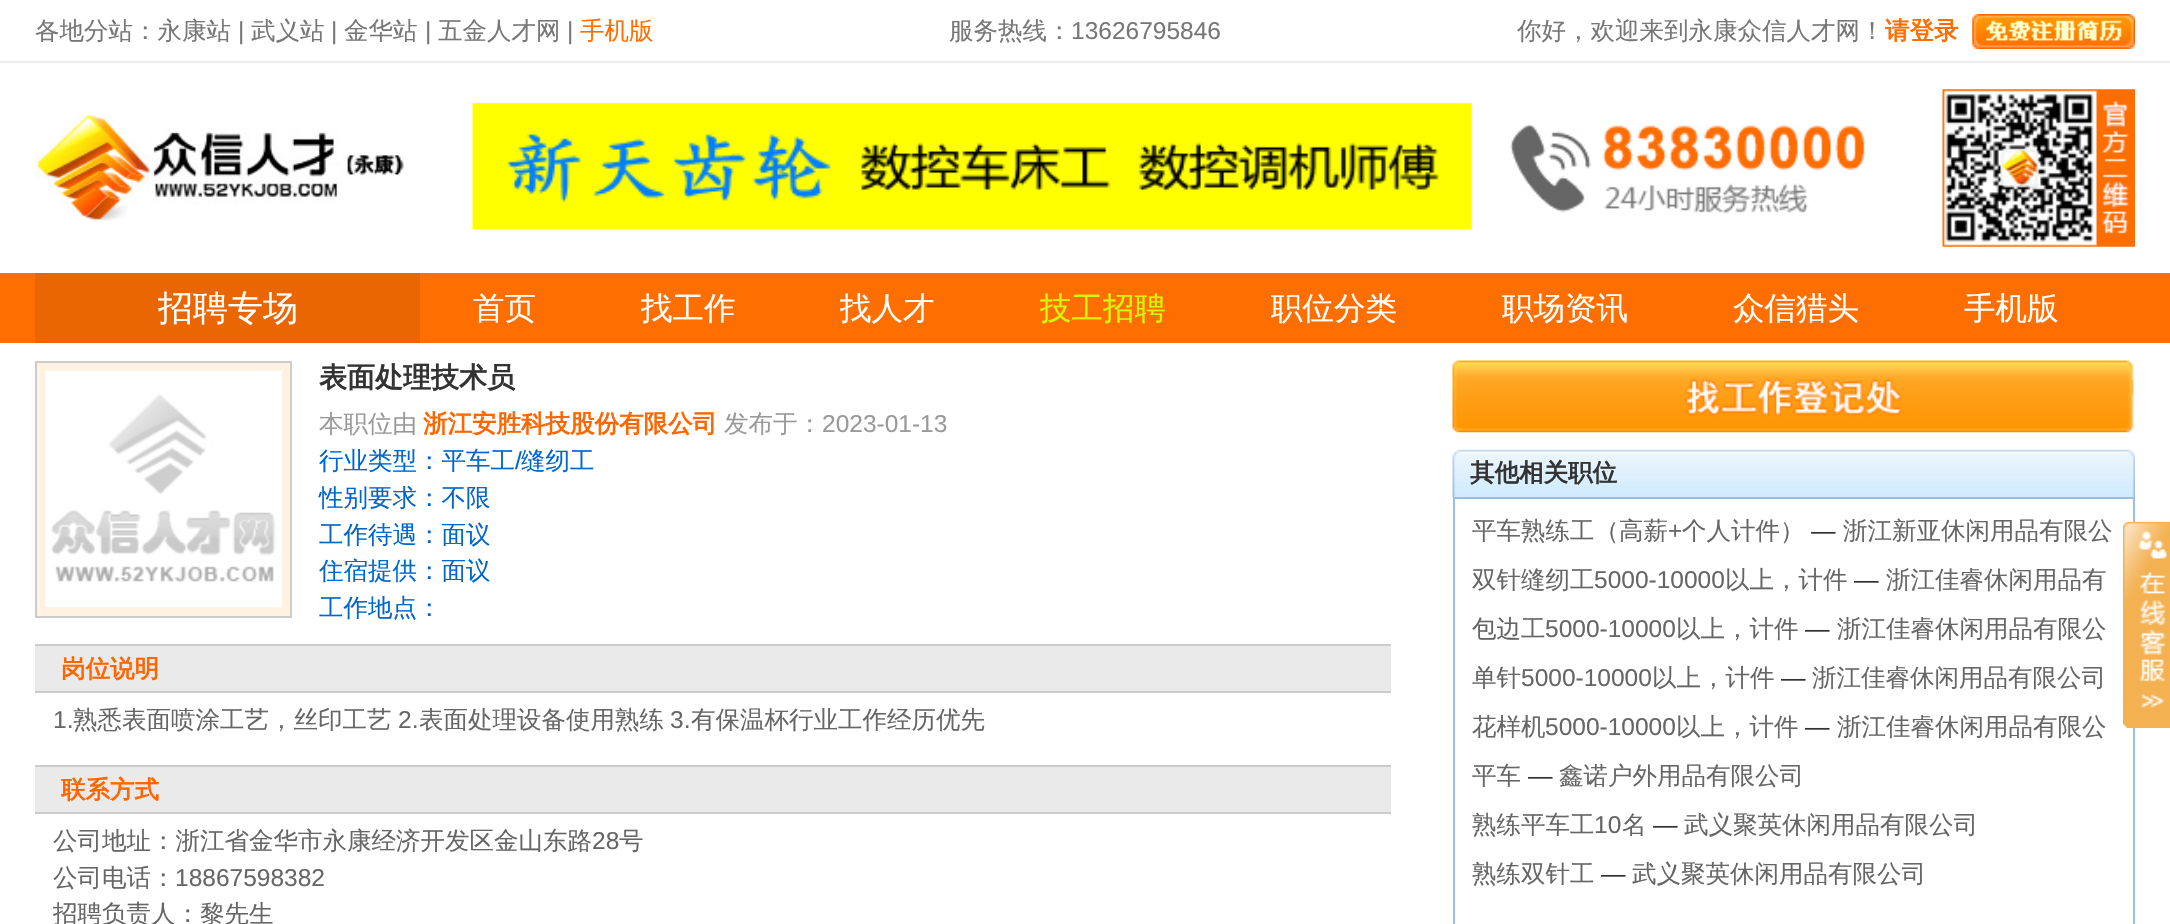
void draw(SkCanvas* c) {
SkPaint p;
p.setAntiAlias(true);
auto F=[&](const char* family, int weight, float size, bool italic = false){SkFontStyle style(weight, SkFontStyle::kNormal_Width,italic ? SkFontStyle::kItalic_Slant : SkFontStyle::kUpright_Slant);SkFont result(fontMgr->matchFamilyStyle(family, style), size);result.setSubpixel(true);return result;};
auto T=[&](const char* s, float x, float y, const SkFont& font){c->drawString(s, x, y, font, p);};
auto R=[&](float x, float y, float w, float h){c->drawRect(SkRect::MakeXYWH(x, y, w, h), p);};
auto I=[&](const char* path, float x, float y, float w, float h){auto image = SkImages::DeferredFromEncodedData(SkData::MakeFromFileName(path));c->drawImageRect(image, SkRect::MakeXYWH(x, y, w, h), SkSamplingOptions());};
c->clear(0xffffffff);
p.setColor(0xffeeeeee);
R(0,61,2170,2);
auto f1 = F("WenQuanYi Zen Hei",500,24.5);
p.setColor(0xff777777);
T("各地分站：永康站",35,39,f1);
auto f2 = F("Liberation Sans",400,24.5);
T("|",238,39,f2);
T("武义站",251,39,f1);
T("|",331,39,f2);
T("金华站",344,39,f1);
T("|",425,39,f2);
T("五金人才网",438,39,f1);
T("|",567,39,f2);
p.setColor(0xffff6e00);
T("手机版",580,39,f1);
p.setColor(0xff777777);
T("服务热线：",949,39,f1);
T("13626795846",1071,39,f2);
T("你好，欢迎来到永康众信人才网！",1517,39,f1);
auto f3 = F("WenQuanYi Zen Hei",700,24.5);
p.setColor(0xffff6e00);
T("请登录",1885,39,f3);
I("1.png",1972,14,163,35);
I("2.png",35,115,369,106);
I("3.png",472,103,1000,127);
I("4.png",1510,124,355,90);
I("5.png",1942,89,193,158);
R(0,273,2170,70);
p.setColor(0xffe96603);
R(35,273,385,70);
auto f4 = F("WenQuanYi Zen Hei",500,35);
p.setColor(0xffffffff);
T("招聘专场",158,320,f4);
auto f5 = F("WenQuanYi Zen Hei",500,31.5);
T("首页",473,319,f5);
T("找工作",641,319,f5);
T("找人才",840,319,f5);
p.setColor(0xffd2f709);
T("技工招聘",1040,319,f5);
p.setColor(0xffffffff);
T("职位分类",1271,319,f5);
T("职场资讯",1502,319,f5);
T("众信猎头",1733,319,f5);
T("手机版",1964,319,f5);
p.setColor(0xfffff2e1);
c->drawRect(SkRect::MakeXYWH(36,362,255,255),p);
p.setStroke(true);
p.setStrokeWidth(2);
p.setColor(0xffcccccc);
c->drawRect(SkRect::MakeXYWH(36,362,255,255),p);
I("6.png",45,371,237,237);
auto f6 = F("WenQuanYi Zen Hei",700,28);
p.setStroke(false);
p.setColor(0xff333333);
T("表面处理技术员",319,387,f6);
p.setColor(0xff999999);
T("本职位由",319,432,f1);
p.setColor(0xffff6600);
T("浙江安胜科技股份有限公司",423,432,f3);
p.setColor(0xff999999);
T("发布于：",724,432,f1);
T("2023-01-13",822,432,f2);
p.setColor(0xff0066cc);
T("行业类型：平车工",319,469,f1);
T("/",515,469,f2);
T("缝纫工",521,469,f1);
T("性别要求：不限",319,506,f1);
T("工作待遇：面议",319,543,f1);
T("住宿提供：面议",319,579,f1);
T("工作地点：",319,616,f1);
p.setColor(0xffeaeaea);
R(35,646,1356,45);
p.setColor(0xffcccccc);
R(35,644,1356,2);
R(35,691,1356,2);
p.setColor(0xffff6600);
T("岗位说明",61,677,f3);
p.setColor(0xff666666);
T("1.",53,728,f2);
T("熟悉表面喷涂工艺，丝印工艺",73,728,f1);
T("2.",398,728,f2);
T("表面处理设备使用熟练",419,728,f1);
T("3.",670,728,f2);
T("有保温杯行业工作经历优先",691,728,f1);
p.setColor(0xffeaeaea);
R(35,767,1356,45);
p.setColor(0xffcccccc);
R(35,765,1356,2);
R(35,812,1356,2);
p.setColor(0xffff6600);
T("联系方式",61,798,f3);
p.setColor(0xff666666);
T("公司地址：浙江省金华市永康经济开发区金山东路",53,849,f1);
T("28",592,849,f2);
T("号",619,849,f1);
T("公司电话：",53,886,f1);
T("18867598382",175,886,f2);
T("招聘负责人：黎先生",53,922,f1);
I("7.png",1452,360,682,73);
I("8.png",1452,449,683,48);
p.setColor(0xff333333);
T("其他相关职位",1470,481,f3);
p.setStroke(true);
p.setColor(0xff99bfe4);
c->drawRect(SkRect::MakeXYWH(1454,498,680,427),p);
p.setStroke(false);
p.setColor(0xff666666);
T("平车熟练工（高薪",1472,539,f1);
T("+",1668,539,f2);
T("个人计件）",1682,539,f1);
p.setColor(0xff333333);
T("—",1811,539,f2);
p.setColor(0xff666666);
T("浙江新亚休闲用品有限公",1843,539,f1);
T("双针缝纫工",1472,588,f1);
T("5000-10000",1594,588,f2);
T("以上，计件",1725,588,f1);
p.setColor(0xff333333);
T("—",1854,588,f2);
p.setColor(0xff666666);
T("浙江佳睿休闲用品有",1886,588,f1);
T("包边工",1472,637,f1);
T("5000-10000",1545,637,f2);
T("以上，计件",1676,637,f1);
p.setColor(0xff333333);
T("—",1805,637,f2);
p.setColor(0xff666666);
T("浙江佳睿休闲用品有限公",1837,637,f1);
T("单针",1472,686,f1);
T("5000-10000",1521,686,f2);
T("以上，计件",1652,686,f1);
p.setColor(0xff333333);
T("—",1781,686,f2);
p.setColor(0xff666666);
T("浙江佳睿休闲用品有限公司",1812,686,f1);
T("花样机",1472,735,f1);
T("5000-10000",1545,735,f2);
T("以上，计件",1676,735,f1);
p.setColor(0xff333333);
T("—",1805,735,f2);
p.setColor(0xff666666);
T("浙江佳睿休闲用品有限公",1837,735,f1);
T("平车",1472,784,f1);
p.setColor(0xff333333);
T("—",1528,784,f2);
p.setColor(0xff666666);
T("鑫诺户外用品有限公司",1559,784,f1);
T("熟练平车工",1472,833,f1);
T("10",1594,833,f2);
T("名",1622,833,f1);
p.setColor(0xff333333);
T("—",1653,833,f2);
p.setColor(0xff666666);
T("武义聚英休闲用品有限公司",1684,833,f1);
T("熟练双针工",1472,882,f1);
p.setColor(0xff333333);
T("—",1601,882,f2);
p.setColor(0xff666666);
T("武义聚英休闲用品有限公司",1632,882,f1);
I("9.png",2123,522,47,206);
}
